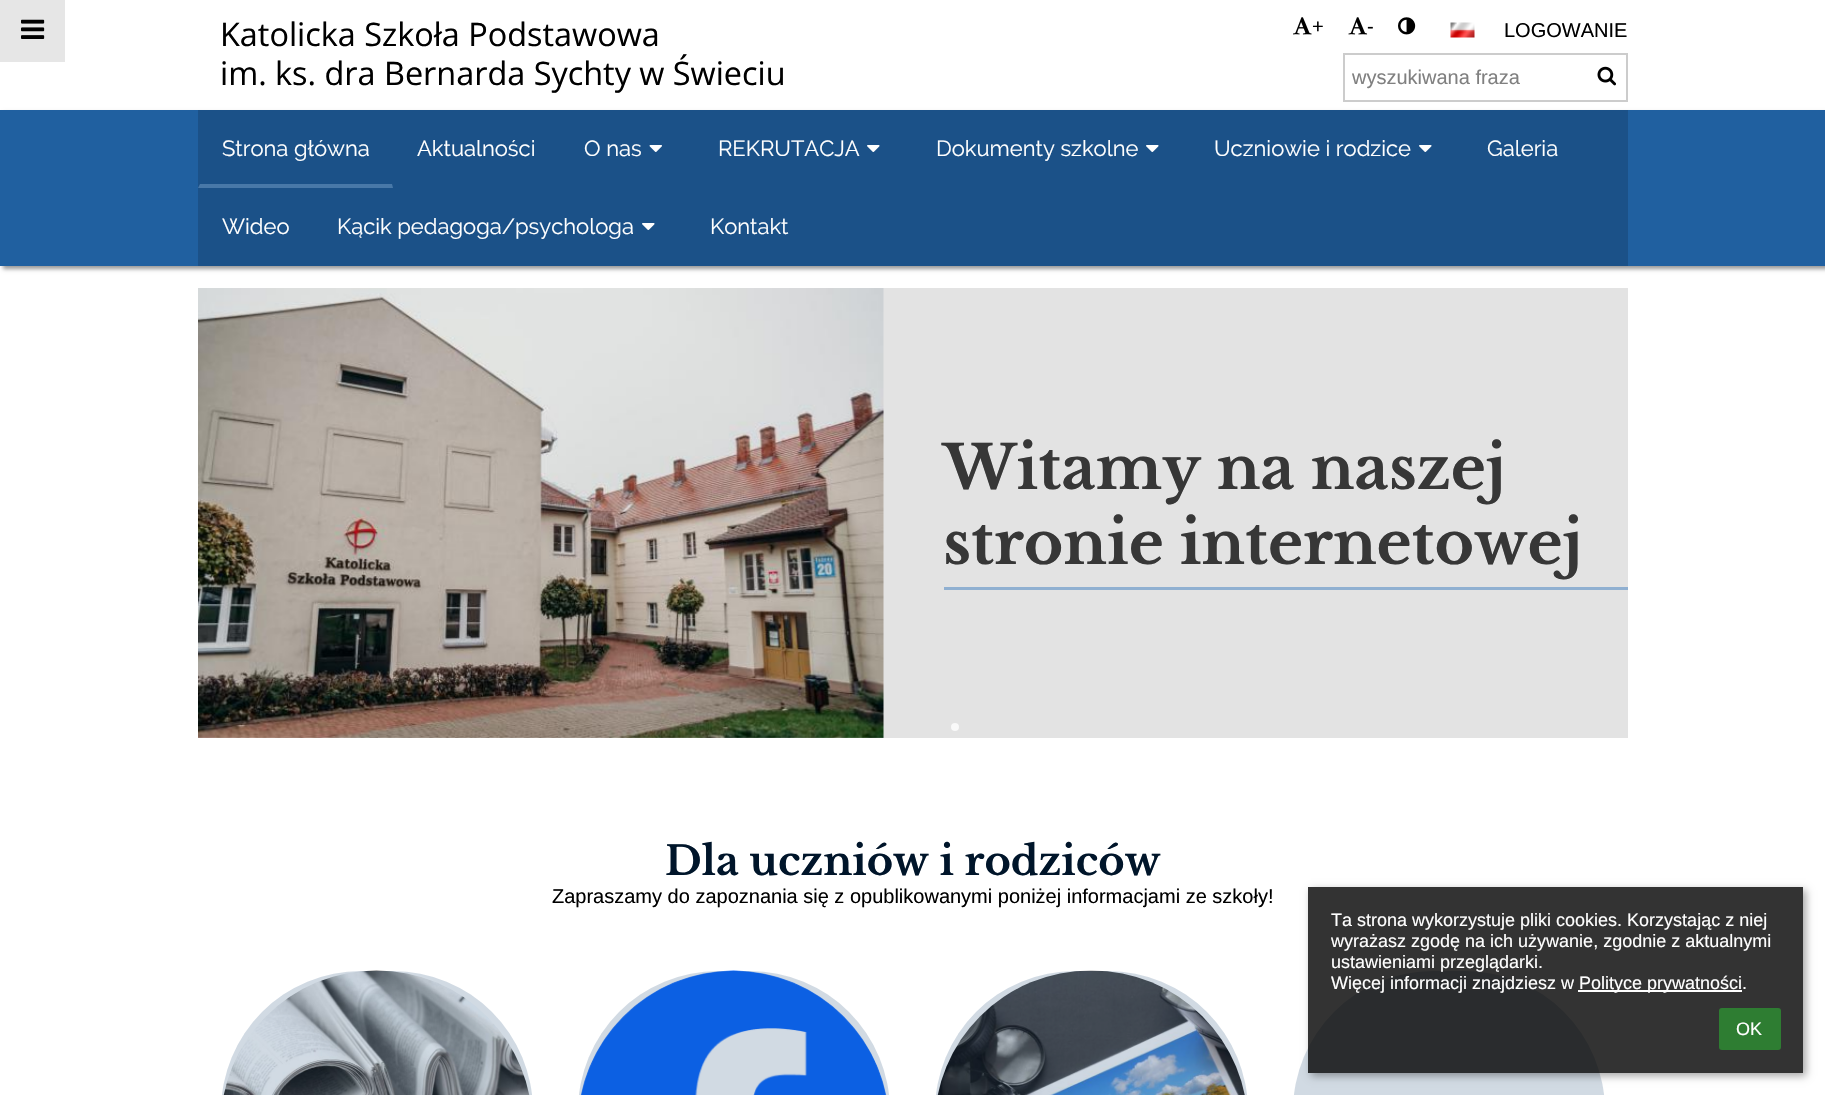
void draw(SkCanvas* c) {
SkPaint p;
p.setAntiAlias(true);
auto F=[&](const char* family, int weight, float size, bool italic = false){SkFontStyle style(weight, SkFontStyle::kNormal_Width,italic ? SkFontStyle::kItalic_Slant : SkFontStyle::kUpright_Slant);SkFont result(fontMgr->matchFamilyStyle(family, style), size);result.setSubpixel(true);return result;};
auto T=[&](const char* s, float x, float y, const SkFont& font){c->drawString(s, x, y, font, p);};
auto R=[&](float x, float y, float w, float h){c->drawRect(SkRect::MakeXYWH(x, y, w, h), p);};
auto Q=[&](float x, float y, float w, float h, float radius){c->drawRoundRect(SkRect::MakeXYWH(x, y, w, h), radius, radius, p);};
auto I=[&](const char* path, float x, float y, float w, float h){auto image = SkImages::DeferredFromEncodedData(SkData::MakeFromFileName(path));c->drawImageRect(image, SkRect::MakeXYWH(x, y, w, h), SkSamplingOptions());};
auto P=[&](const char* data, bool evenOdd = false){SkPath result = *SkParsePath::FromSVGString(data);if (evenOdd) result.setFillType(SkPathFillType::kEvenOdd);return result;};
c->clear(0xffffffff);
p.setColor(0xffe6e6e6);
R(0,0,65,62);
I("1.png",21,19,24,20);
auto f1 = F("Open Sans",400,32.4);
p.setColor(0xff000000);
T("Katolicka Szkoła Podstawowa",220,46,f1);
T("im. ks. dra Bernarda Sychty w Świeciu",220,85,f1);
I("2.png",1293,17,19,18);
auto f2 = F("Liberation Sans",400,20);
T("+",1312,33,f2);
I("3.png",1348,17,20,18);
T("-",1367,33,f2);
I("4.png",1398,17,18,18);
I("5.png",1450,22,25,16);
T("LOGOWANIE",1504,37,f2);
p.setStroke(true);
p.setStrokeWidth(2);
p.setColor(0xffcccccc);
c->drawRect(SkRect::MakeXYWH(1344,54,283,47),p);
p.setStroke(false);
p.setColor(0xff808080);
T("wyszukiwana fraza",1352,84,f2);
I("6.png",1597,66,19,20);
p.setColor(0x66000000);
p.setMaskFilter(SkMaskFilter::MakeBlur(kNormal_SkBlurStyle, 2));
c->drawRect(SkRect::MakeXYWH(3,113,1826,156),p);
p.setMaskFilter(nullptr);
p.setColor(0xff2060a0);
R(0,110,1825,156);
p.setColor(0xff1b5188);
R(198,110,1430,156);
p.setColor(0xff4878a8);
c->drawPath(P("M393 188h-195l2-4h192z"),p);
auto f3 = F("Raleway",400,22);
p.setColor(0xffffffff);
T("Strona główna",222,156,f3);
T("Aktualności",417,156,f3);
T("O nas",584,156,f3);
I("7.png",649,145,13,7);
T("REKRUTACJA",718,156,f3);
I("8.png",867,145,13,7);
T("Dokumenty szkolne",936,156,f3);
I("8.png",1146,145,13,7);
T("Uczniowie i rodzice",1214,156,f3);
I("8.png",1419,145,13,7);
T("Galeria",1487,156,f3);
T("Wideo",222,234,f3);
T("Kącik pedagoga/psychologa",337,234,f3);
I("8.png",642,223,13,7);
T("Kontakt",710,234,f3);
p.setColor(0xffe3e3e3);
R(198,288,1430,450);
I("9.png",198,288,686,450);
p.setColor(0xff90b0d1);
R(944,587,684,3);
auto f4 = F("Libre Baskerville",700,60);
p.setColor(0xff373737);
T("Witamy na naszej",943,489,f4);
T("stronie internetowej",943,564,f4);
p.setColor(0xfff9f9f9);
c->drawCircle(955,727,4,p);
auto f5 = F("Libre Baskerville",700,40);
p.setColor(0xff00152a);
T("Dla uczniów i rodziców",665,875,f5);
p.setColor(0xff000000);
T("Zapraszamy do zapoznania się z opublikowanymi poniżej informacjami ze szkoły!",552,903,f2);
I("10.png",223,970,307,125);
p.setColor(0x33174573);
Q(221,971,312,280,156);
I("11.png",580,970,307,125);
Q(578,971,312,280,156);
I("12.png",937,970,308,125);
Q(935,971,313,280,156);
p.setColor(0xffd1dae3);
Q(1293,971,312,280,156);
c->save();
c->clipPath(P("M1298 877h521v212h-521zm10 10h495v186h-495z",true),true);
p.setColor(0x59000000);
p.setMaskFilter(SkMaskFilter::MakeBlur(kNormal_SkBlurStyle, 4));
c->drawRect(SkRect::MakeXYWH(1311,890,495,186),p);
p.setMaskFilter(nullptr);
c->restore();
p.setColor(0xcc000000);
R(1308,887,495,186);
auto f6 = F("Liberation Sans",400,18);
p.setColor(0xffffffff);
T("Ta strona wykorzystuje pliki cookies. Korzystając z niej",1331,926,f6);
T("wyrażasz zgodę na ich używanie, zgodnie z aktualnymi",1331,947,f6);
T("ustawieniami przeglądarki.",1331,968,f6);
T("Więcej informacji znajdziesz w",1331,989,f6);
R(1578,990,164,2);
T("Polityce prywatności.",1579,989,f6);
p.setColor(0xff2e7d32);
Q(1719,1008,62,42,3);
p.setColor(0xffffffff);
T("OK",1736,1035,f6);
}
